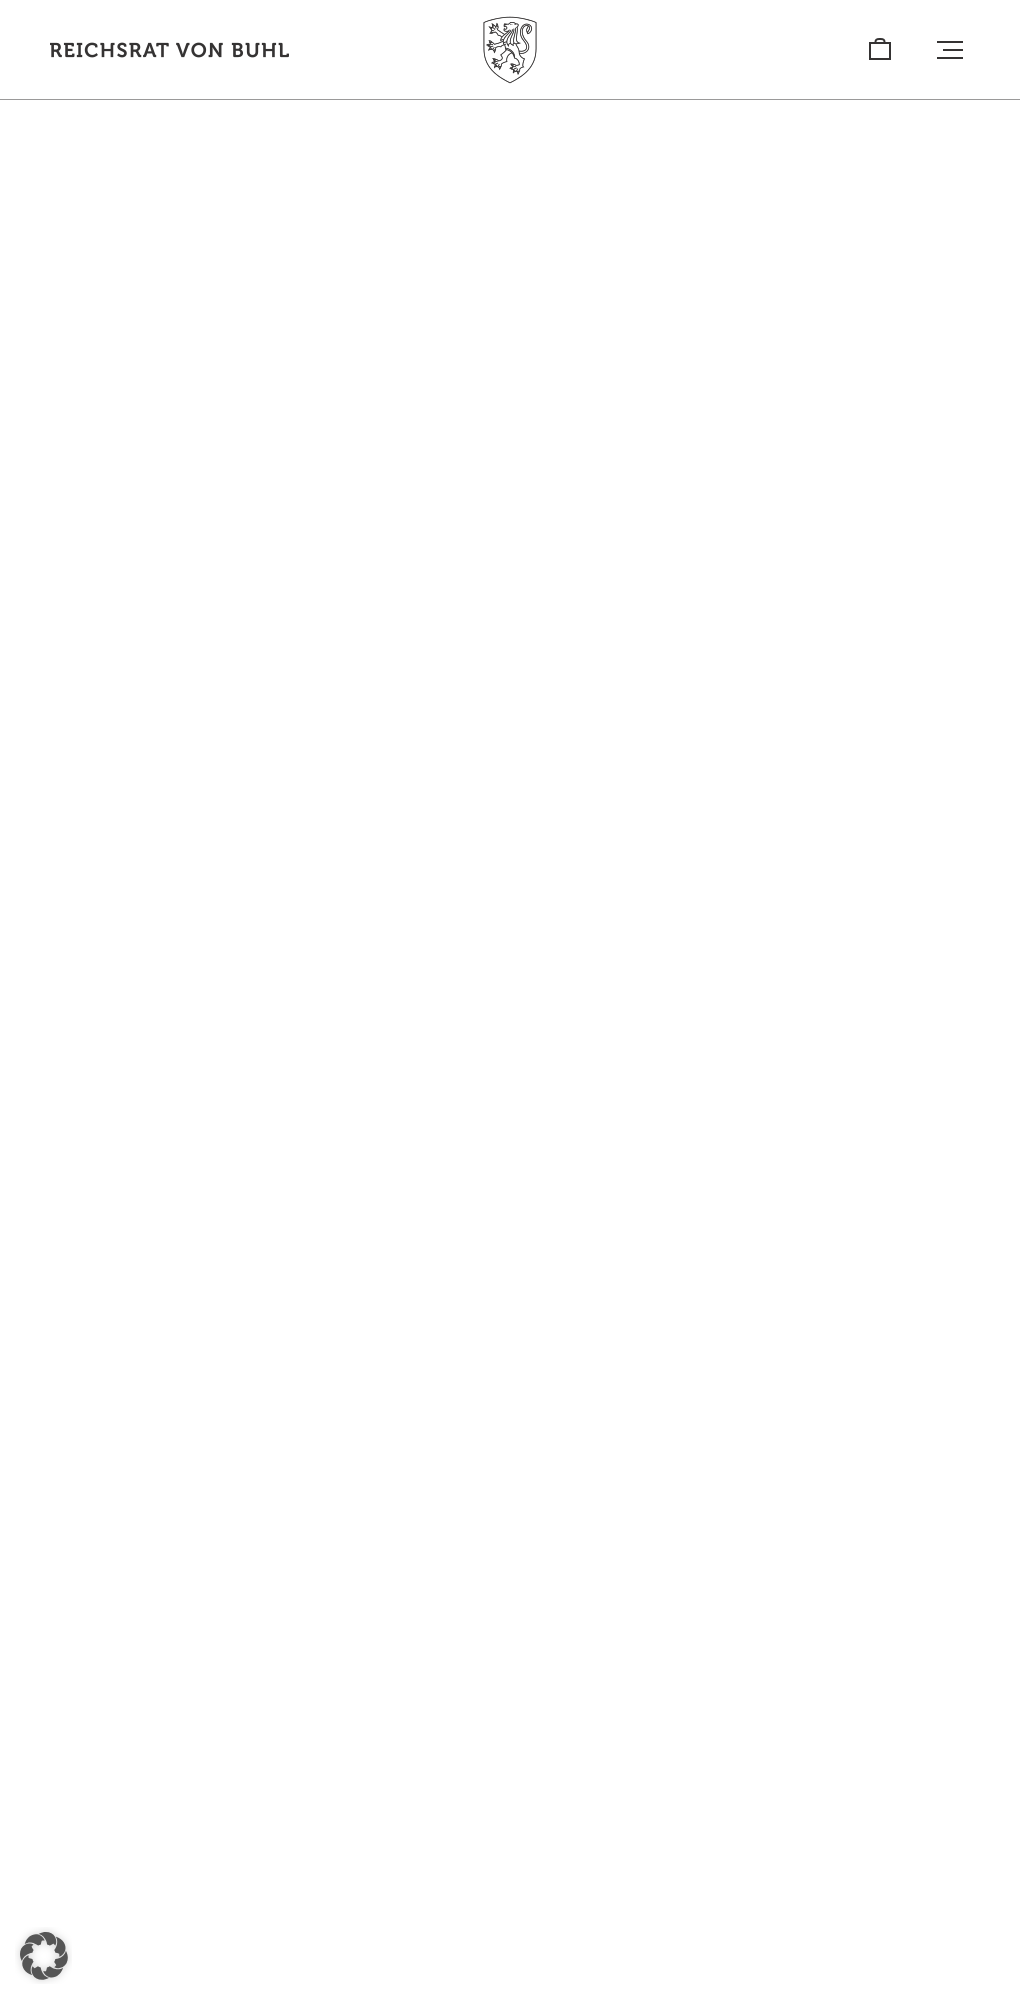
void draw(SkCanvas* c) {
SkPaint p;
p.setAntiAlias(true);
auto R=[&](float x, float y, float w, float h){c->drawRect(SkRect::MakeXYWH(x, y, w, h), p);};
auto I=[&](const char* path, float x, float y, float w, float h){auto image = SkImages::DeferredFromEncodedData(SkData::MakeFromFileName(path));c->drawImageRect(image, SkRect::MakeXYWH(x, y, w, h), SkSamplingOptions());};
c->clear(0xffffffff);
p.setColor(0xff9a9999);
R(0,99,1020,1);
I("1.png",50,42,239,16);
I("2.png",483,16,54,68);
I("3.png",869,38,22,22);
p.setColor(0xff353333);
R(937,41,26,2);
R(943,49,20,2);
R(937,57,26,2);
I("4.png",15,1927,57,57);
}
